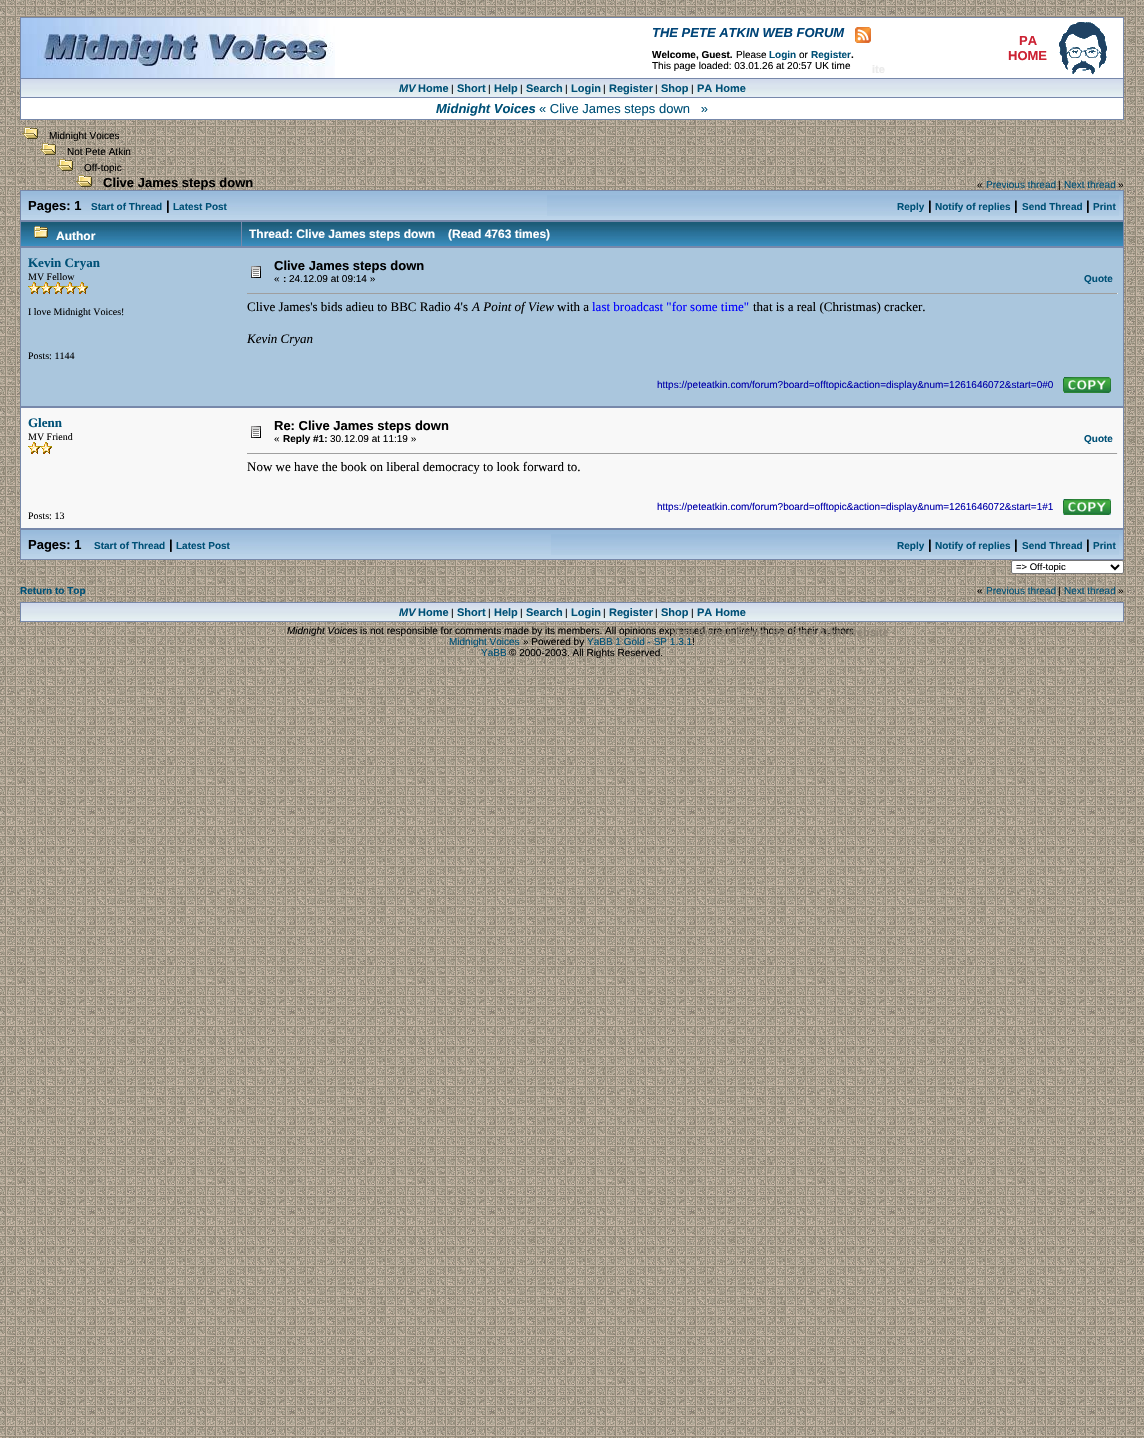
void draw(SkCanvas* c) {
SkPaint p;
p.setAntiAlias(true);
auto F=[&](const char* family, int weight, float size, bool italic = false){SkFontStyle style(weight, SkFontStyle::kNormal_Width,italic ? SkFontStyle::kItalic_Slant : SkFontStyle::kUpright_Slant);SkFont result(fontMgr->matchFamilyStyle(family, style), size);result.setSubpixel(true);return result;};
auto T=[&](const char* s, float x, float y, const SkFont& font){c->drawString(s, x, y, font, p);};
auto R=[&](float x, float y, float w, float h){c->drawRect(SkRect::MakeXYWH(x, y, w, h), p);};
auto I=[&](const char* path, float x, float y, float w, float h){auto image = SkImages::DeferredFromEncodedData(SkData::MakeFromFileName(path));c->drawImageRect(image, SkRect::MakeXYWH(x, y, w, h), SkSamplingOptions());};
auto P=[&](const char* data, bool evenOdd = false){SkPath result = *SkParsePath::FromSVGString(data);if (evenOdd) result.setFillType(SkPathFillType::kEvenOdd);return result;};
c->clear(0xffffffff);
I("1.png",0,0,1144,1438);
p.setColor(0xff7788aa);
R(20,17,1104,103);
p.setColor(0xffffffff);
R(335,18,788,60);
I("2.png",21,18,314,60);
auto f1 = F("Liberation Sans",700,13,true);
p.setColor(0xff004477);
T("THE PETE ATKIN WEB FORUM",652,37,f1);
I("3.png",855,27,16,16);
auto f2 = F("Liberation Sans",700,10);
p.setColor(0xff000000);
T("Welcome, Guest.",652,58,f2);
auto f3 = F("Liberation Sans",400,10);
T("Please",736,58,f3);
p.setColor(0xff005177);
T("Login",769,58,f2);
p.setColor(0xff000000);
T("or",799,58,f3);
p.setColor(0xff005177);
T("Register",811,58,f2);
p.setColor(0xff000000);
T(".",851,58,f2);
T("This page loaded: 03.01.26 at 20:57 UK time",652,69,f3);
auto f4 = F("Liberation Sans",700,13);
p.setColor(0xffcc2233);
T("PA",1019,45,f4);
T("HOME",1008,60,f4);
I("4.png",1059,22,48,53);
I("5.png",21,79,1102,18);
auto f5 = F("Liberation Sans",700,11,true);
p.setColor(0xff005177);
T("MV",399,92,f5);
auto f6 = F("Liberation Sans",700,11);
T("Home",418,92,f6);
p.setColor(0xff000000);
T("|",451,92,f3);
p.setColor(0xff005177);
T("Short",457,92,f6);
p.setColor(0xff000000);
T("|",488,92,f3);
p.setColor(0xff005177);
T("Help",494,92,f6);
p.setColor(0xff000000);
T("|",520,92,f3);
p.setColor(0xff005177);
T("Search",526,92,f6);
p.setColor(0xff000000);
T("|",565,92,f3);
p.setColor(0xff005177);
T("Login",571,92,f6);
p.setColor(0xff000000);
T("|",603,92,f3);
p.setColor(0xff005177);
T("Register",609,92,f6);
p.setColor(0xff000000);
T("|",655,92,f3);
p.setColor(0xff005177);
T("Shop",661,92,f6);
p.setColor(0xff000000);
T("|",691,92,f3);
p.setColor(0xffebebeb);
T("ite",872,73,f6);
p.setColor(0xff005177);
T("PA Home",697,92,f6);
p.setColor(0xffffffff);
R(21,98,1102,21);
p.setColor(0xff005177);
T("Midnight Voices",436,113,f1);
auto f7 = F("Liberation Sans",400,13);
T("« Clive James steps down   »",539,113,f7);
I("6.png",22,127,16,12);
p.setColor(0xff000000);
T("Midnight Voices",49,139,f3);
I("7.png",40,143,16,12);
T("Not Pete Atkin",67,155,f3);
I("8.png",57,159,16,12);
T("Off-topic",84,171,f3);
I("9.png",76,175,16,12);
T("Clive James steps down",103,187,f4);
T("«",977,188,f3);
p.setColor(0xff005177);
T("Previous thread",986,188,f3);
p.setColor(0xff7788aa);
R(20,190,1104,370);
p.setColor(0xff000000);
T("|",1058,188,f3);
p.setColor(0xff005177);
T("Next thread",1064,188,f3);
p.setColor(0xff000000);
T("»",1118,188,f3);
I("10.png",21,191,1102,29);
T("Pages: 1",28,210,f4);
p.setColor(0xff005177);
T("Start of Thread",91,210,f2);
p.setColor(0xff000000);
T("|",166,210,f4);
p.setColor(0xff005177);
T("Latest Post",173,210,f2);
I("11.png",547,195,572,21);
T("Reply",897,210,f2);
p.setColor(0xff000000);
T("|",928,210,f4);
p.setColor(0xff005177);
T("Notify of replies",935,210,f2);
p.setColor(0xff000000);
T("|",1014,210,f4);
p.setColor(0xff005177);
T("Send Thread",1022,210,f2);
p.setColor(0xff000000);
T("|",1086,210,f4);
p.setColor(0xff005177);
T("Print",1093,210,f2);
I("12.png",21,222,220,24);
I("13.png",34,226,14,12);
auto f8 = F("Liberation Sans",700,12);
p.setColor(0xffffffff);
T("Author",56,240,f8);
I("14.png",242,222,881,24);
T("Thread: Clive James steps down",249,238,f8);
T("(Read 4763 times)",448,238,f8);
p.setColor(0xffaac6dd);
R(21,248,1102,158);
auto f9 = F("Liberation Serif",700,13);
p.setColor(0xff005177);
T("Kevin Cryan",28,267,f9);
auto f10 = F("Liberation Serif",400,10);
p.setColor(0xff000000);
T("MV Fellow",28,280,f10);
I("15.png",28,282,12,12);
I("15.png",40,282,12,12);
I("15.png",52,282,12,12);
I("15.png",64,282,12,12);
I("15.png",76,282,12,12);
T("I love Midnight Voices!",28,315,f10);
T("Posts: 1144",28,359,f10);
I("16.png",251,266,10,12);
T("Clive James steps down",274,270,f4);
T("«",274,282,f3);
T(":",283,282,f2);
T("24.12.09 at 09:14 »",289,282,f3);
p.setColor(0xff005177);
T("Quote",1084,282,f2);
p.setColor(0xff9f9f9f);
R(247,293,871,1);
p.setColor(0xffeeeeee);
R(1117,293,1,1);
auto f11 = F("Liberation Serif",400,13);
p.setColor(0xff000000);
T("Clive James's bids adieu to BBC Radio 4's",247,311,f11);
auto f12 = F("Liberation Serif",400,13,true);
T("A Point of View",472,311,f12);
T("with a",557,311,f11);
p.setColor(0xff0000ff);
T("last broadcast \"for some time\"",592,311,f11);
p.setColor(0xff000000);
T("that is a real (Christmas) cracker.",753,311,f11);
T("Kevin Cryan",247,343,f12);
p.setColor(0xff0000aa);
T("https://peteatkin.com/forum?board=offtopic&action=display&num=1261646072&start=0#0",657,388,f3);
I("17.png",1063,377,48,16);
p.setColor(0xfff8f8f8);
R(21,408,1102,120);
p.setColor(0xff005177);
T("Glenn",28,427,f9);
p.setColor(0xff000000);
T("MV Friend",28,440,f10);
I("18.png",28,442,12,12);
I("18.png",40,442,12,12);
T("Posts: 13",28,519,f10);
I("16.png",251,426,10,12);
T("Re: Clive James steps down",274,430,f4);
T("«",274,442,f3);
T("Reply #1:",283,442,f2);
T("30.12.09 at 11:19 »",330,442,f3);
p.setColor(0xff005177);
T("Quote",1084,442,f2);
p.setColor(0xff9f9f9f);
R(247,453,871,1);
p.setColor(0xffeeeeee);
R(1117,453,1,1);
p.setColor(0xff000000);
T("Now we have the book on liberal democracy to look forward to.",247,471,f11);
p.setColor(0xff0000aa);
T("https://peteatkin.com/forum?board=offtopic&action=display&num=1261646072&start=1#1",657,510,f3);
I("17.png",1063,499,48,16);
I("10.png",21,530,1102,29);
p.setColor(0xff000000);
T("Pages: 1",28,549,f4);
p.setColor(0xff005177);
T("Start of Thread",94,549,f2);
p.setColor(0xff000000);
T("|",169,549,f4);
p.setColor(0xff005177);
T("Latest Post",176,549,f2);
I("19.png",551,534,568,21);
T("Reply",897,549,f2);
p.setColor(0xff000000);
T("|",928,549,f4);
p.setColor(0xff005177);
T("Notify of replies",935,549,f2);
p.setColor(0xff000000);
T("|",1014,549,f4);
p.setColor(0xff005177);
T("Send Thread",1022,549,f2);
p.setColor(0xff000000);
T("|",1086,549,f4);
p.setColor(0xff005177);
T("Print",1093,549,f2);
p.setColor(0xffffffff);
c->drawRoundRect(SkRect::MakeXYWH(1011.5,560.5,112,13),1.5,1.5,p);
p.setStroke(true);
p.setStrokeWidth(1);
p.setColor(0xff767676);
c->drawRoundRect(SkRect::MakeXYWH(1011.5,560.5,112,13),1.5,1.5,p);
p.setStrokeWidth(2);
p.setColor(0xff000000);
c->drawPath(P("M1111 565l4 4l4-4"),p);
auto f13 = F("Liberation Sans",400,9.5);
p.setStroke(false);
T("=> Off-topic",1016,570,f13);
p.setColor(0xff005177);
T("Return to Top",20,594,f2);
p.setColor(0xff000000);
T("«",977,594,f3);
p.setColor(0xff005177);
T("Previous thread",986,594,f3);
p.setColor(0xff000000);
T("|",1058,594,f3);
p.setColor(0xff005177);
T("Next thread",1064,594,f3);
p.setColor(0xff000000);
T("»",1118,594,f3);
p.setColor(0xff7788aa);
R(20,602,1104,20);
I("5.png",21,603,1102,18);
p.setColor(0xffa89e8d);
T("t",504,597,f6);
T("t",664,597,f6);
p.setColor(0xff005177);
T("MV",399,616,f5);
T("Home",418,616,f6);
p.setColor(0xff000000);
T("|",451,616,f3);
p.setColor(0xff005177);
T("Short",457,616,f6);
p.setColor(0xff000000);
T("|",488,616,f3);
p.setColor(0xff005177);
T("Help",494,616,f6);
p.setColor(0xff000000);
T("|",520,616,f3);
p.setColor(0xff005177);
T("Search",526,616,f6);
p.setColor(0xff000000);
T("|",565,616,f3);
p.setColor(0xff005177);
T("Login",571,616,f6);
p.setColor(0xff000000);
T("|",603,616,f3);
p.setColor(0xff005177);
T("Register",609,616,f6);
p.setColor(0xff000000);
T("|",655,616,f3);
p.setColor(0xff005177);
T("Shop",661,616,f6);
T("PA Home",697,616,f6);
p.setColor(0xff000000);
T("is not responsible for comments made by its members. All opinions expressed are entirely those of their authors.",360,634,f3);
p.setColor(0xff8d8476);
T("Visit Smash Flops, the Pete Atkin website",671,636,f6);
p.setColor(0xff000000);
T("|",691,616,f3);
auto f14 = F("Liberation Sans",400,10,true);
T("Midnight Voices",287,634,f14);
p.setColor(0xff005177);
T("Midnight Voices",449,645,f3);
p.setColor(0xff000000);
T("» Powered by",523,645,f3);
p.setColor(0xff005177);
T("YaBB 1 Gold - SP 1.3.1",587,645,f3);
p.setColor(0xff000000);
T("!",692,645,f3);
p.setColor(0xff005177);
T("YaBB",481,656,f3);
p.setColor(0xff000000);
T("© 2000-2003. All Rights Reserved.",509,656,f3);
}
